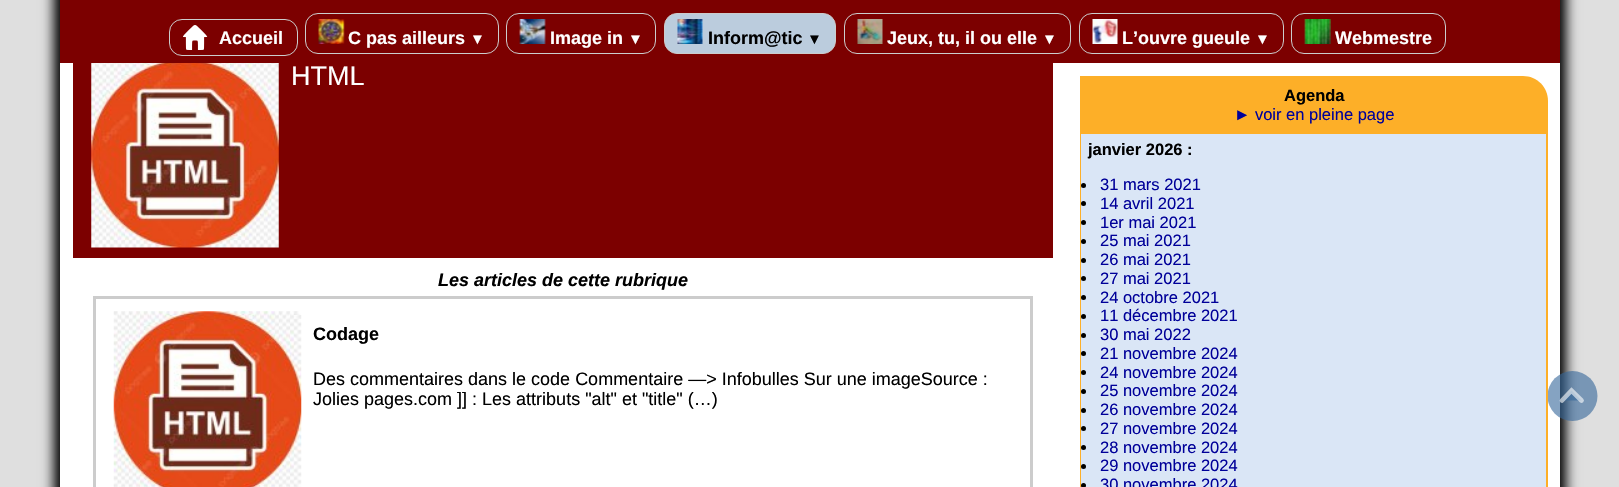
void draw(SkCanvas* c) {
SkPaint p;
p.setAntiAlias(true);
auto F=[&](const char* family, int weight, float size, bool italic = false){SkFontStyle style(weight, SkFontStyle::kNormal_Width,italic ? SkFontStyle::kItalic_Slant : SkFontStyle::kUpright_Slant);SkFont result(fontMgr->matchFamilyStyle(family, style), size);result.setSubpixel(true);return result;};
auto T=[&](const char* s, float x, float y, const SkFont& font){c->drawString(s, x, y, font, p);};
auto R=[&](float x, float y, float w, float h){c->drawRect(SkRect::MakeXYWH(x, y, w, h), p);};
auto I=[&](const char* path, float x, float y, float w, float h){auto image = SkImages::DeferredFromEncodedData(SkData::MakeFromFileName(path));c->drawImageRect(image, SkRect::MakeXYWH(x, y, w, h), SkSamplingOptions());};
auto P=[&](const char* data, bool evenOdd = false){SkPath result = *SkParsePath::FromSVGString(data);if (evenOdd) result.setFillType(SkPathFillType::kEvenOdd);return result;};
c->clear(0xffdfdfdf);
p.setColor(0xff000000);
p.setMaskFilter(SkMaskFilter::MakeBlur(kNormal_SkBlurStyle, 6));
c->drawRect(SkRect::MakeXYWH(54,-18,1500,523),p);
p.setMaskFilter(nullptr);
p.setMaskFilter(SkMaskFilter::MakeBlur(kNormal_SkBlurStyle, 6));
c->drawRect(SkRect::MakeXYWH(66,-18,1500,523),p);
p.setMaskFilter(nullptr);
p.setColor(0xffffffff);
R(60,63,1500,424);
p.setColor(0xff7c0000);
R(60,0,1500,63);
p.setStroke(true);
p.setStrokeWidth(1);
p.setColor(0xffcccccc);
c->drawRoundRect(SkRect::MakeXYWH(169.5,19.5,128,36),12.5,12.5,p);
I("1.png",183,25,25,25);
auto f1 = F("Liberation Sans",700,18);
p.setStroke(false);
p.setColor(0xffffffff);
T("Accueil",219,44,f1);
p.setStroke(true);
p.setColor(0xffcccccc);
c->drawRoundRect(SkRect::MakeXYWH(305.5,13.5,193,40),12.5,12.5,p);
I("2.png",318,19,27,25);
p.setStroke(false);
p.setColor(0xffffffff);
T("C pas ailleurs",348,44,f1);
auto f2 = F("Liberation Sans",700,15);
T("▼",470,44,f2);
p.setStroke(true);
p.setColor(0xffcccccc);
c->drawRoundRect(SkRect::MakeXYWH(506.5,13.5,149,40),12.5,12.5,p);
I("3.png",519,19,27,25);
p.setStroke(false);
p.setColor(0xffffffff);
T("Image in",550,44,f1);
T("▼",628,44,f2);
p.setColor(0xffbbccdd);
c->drawRoundRect(SkRect::MakeXYWH(664.5,13.5,171,40),12.5,12.5,p);
p.setStroke(true);
p.setColor(0xffcccccc);
c->drawRoundRect(SkRect::MakeXYWH(664.5,13.5,171,40),12.5,12.5,p);
I("4.png",677,19,26,25);
p.setStroke(false);
p.setColor(0xff000000);
T("Inform@tic",708,44,f1);
T("▼",807,44,f2);
p.setStroke(true);
p.setColor(0xffcccccc);
c->drawRoundRect(SkRect::MakeXYWH(844.5,13.5,226,40),12.5,12.5,p);
I("5.png",857,19,26,25);
p.setStroke(false);
p.setColor(0xffffffff);
T("Jeux, tu, il ou elle",887,44,f1);
T("▼",1042,44,f2);
p.setStroke(true);
p.setColor(0xffcccccc);
c->drawRoundRect(SkRect::MakeXYWH(1079.5,13.5,204,40),12.5,12.5,p);
I("6.png",1092,19,26,25);
p.setStroke(false);
p.setColor(0xffffffff);
T("L’ouvre gueule",1122,44,f1);
T("▼",1255,44,f2);
p.setStroke(true);
p.setColor(0xffcccccc);
c->drawRoundRect(SkRect::MakeXYWH(1291.5,13.5,154,40),12.5,12.5,p);
I("7.png",1304,19,27,25);
p.setStroke(false);
p.setColor(0xffffffff);
T("Webmestre",1335,44,f1);
p.setColor(0xff7c0000);
R(73,63,980,195);
I("8.png",91,63,188,185);
auto f3 = F("Liberation Sans",400,27);
p.setColor(0xffffffff);
T("HTML",291,85,f3);
auto f4 = F("Liberation Sans",700,18,true);
p.setColor(0xff000000);
T("Les articles de cette rubrique",438,286,f4);
p.setStroke(true);
p.setStrokeWidth(3);
p.setColor(0xffcccccc);
c->drawRect(SkRect::MakeXYWH(94.5,297.5,937,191),p);
I("9.png",113,311,189,176);
p.setStroke(false);
p.setColor(0xff000000);
T("Codage",313,340,f1);
auto f5 = F("Liberation Sans",400,18);
T("Des commentaires dans le code Commentaire —> Infobulles Sur une imageSource :",313,385,f5);
T("Jolies pages.com ]] : Les attributs \"alt\" et \"title\" (…)",313,405,f5);
p.setColor(0xfffdaf28);
c->drawPath(P("M1080 76h443c14 0 25 11 25 25v33h-468z"),p);
auto f6 = F("Liberation Sans",700,16.5);
p.setColor(0xff000000);
T("Agenda",1284,101,f6);
auto f7 = F("Liberation Sans",400,16.5);
p.setColor(0xff000099);
T("► voir en pleine page",1234,120,f7);
p.setColor(0xffdae6f6);
c->drawPath(P("M1081 134h465v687h-454c-6 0-11-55-11-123z"),p);
p.setColor(0xfffdaf28);
c->drawPath(P("M1080 134h468v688h-456c-6 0-12-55-12-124zm1 0h465v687h-454c-6 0-11-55-11-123z",true),p);
p.setColor(0xff000000);
T("janvier 2026 :",1088,155,f6);
c->drawCircle(1083.5,185.5,2.5,p);
p.setColor(0xff000099);
T("31 mars 2021",1100,190,f7);
p.setColor(0xff000000);
c->drawCircle(1083.5,203.5,2.5,p);
p.setColor(0xff000099);
T("14 avril 2021",1100,209,f7);
p.setColor(0xff000000);
c->drawCircle(1083.5,222.5,2.5,p);
p.setColor(0xff000099);
T("1er mai 2021",1100,228,f7);
p.setColor(0xff000000);
c->drawCircle(1083.5,241.5,2.5,p);
p.setColor(0xff000099);
T("25 mai 2021",1100,246,f7);
p.setColor(0xff000000);
c->drawCircle(1083.5,260.5,2.5,p);
p.setColor(0xff000099);
T("26 mai 2021",1100,265,f7);
p.setColor(0xff000000);
c->drawCircle(1083.5,278.5,2.5,p);
p.setColor(0xff000099);
T("27 mai 2021",1100,284,f7);
p.setColor(0xff000000);
c->drawCircle(1083.5,297.5,2.5,p);
p.setColor(0xff000099);
T("24 octobre 2021",1100,303,f7);
p.setColor(0xff000000);
c->drawCircle(1083.5,316.5,2.5,p);
p.setColor(0xff000099);
T("11 décembre 2021",1100,321,f7);
p.setColor(0xff000000);
c->drawCircle(1083.5,335.5,2.5,p);
p.setColor(0xff000099);
T("30 mai 2022",1100,340,f7);
p.setColor(0xff000000);
c->drawCircle(1083.5,353.5,2.5,p);
p.setColor(0xff000099);
T("21 novembre 2024",1100,359,f7);
p.setColor(0xff000000);
c->drawCircle(1083.5,372.5,2.5,p);
p.setColor(0xff000099);
T("24 novembre 2024",1100,378,f7);
p.setColor(0xff000000);
c->drawCircle(1083.5,391.5,2.5,p);
p.setColor(0xff000099);
T("25 novembre 2024",1100,396,f7);
p.setColor(0xff000000);
c->drawCircle(1083.5,410.5,2.5,p);
p.setColor(0xff000099);
T("26 novembre 2024",1100,415,f7);
p.setColor(0xff000000);
c->drawCircle(1083.5,428.5,2.5,p);
p.setColor(0xff000099);
T("27 novembre 2024",1100,434,f7);
p.setColor(0xff000000);
c->drawCircle(1083.5,447.5,2.5,p);
p.setColor(0xff000099);
T("28 novembre 2024",1100,453,f7);
p.setColor(0xff000000);
c->drawCircle(1083.5,466.5,2.5,p);
p.setColor(0xff000099);
T("29 novembre 2024",1100,471,f7);
p.setColor(0xff000000);
c->drawCircle(1083.5,485.5,2.5,p);
p.setColor(0xff000099);
T("30 novembre 2024",1100,490,f7);
c->save();
c->clipRect(SkRect::MakeXYWH(1548,371,50,50));
p.setColor(0x99336699);
c->drawCircle(1572.5,396,25,p);
c->restore();
c->drawPath(P("M1562 400.5l9.5-10l10 10"),p);
p.setStroke(true);
p.setStrokeWidth(4.7);
p.setStrokeCap(SkPaint::kRound_Cap);
p.setColor(0x99ffffff);
c->drawPath(P("M1562 400.5l9.5-10l10 10"),p);
}
